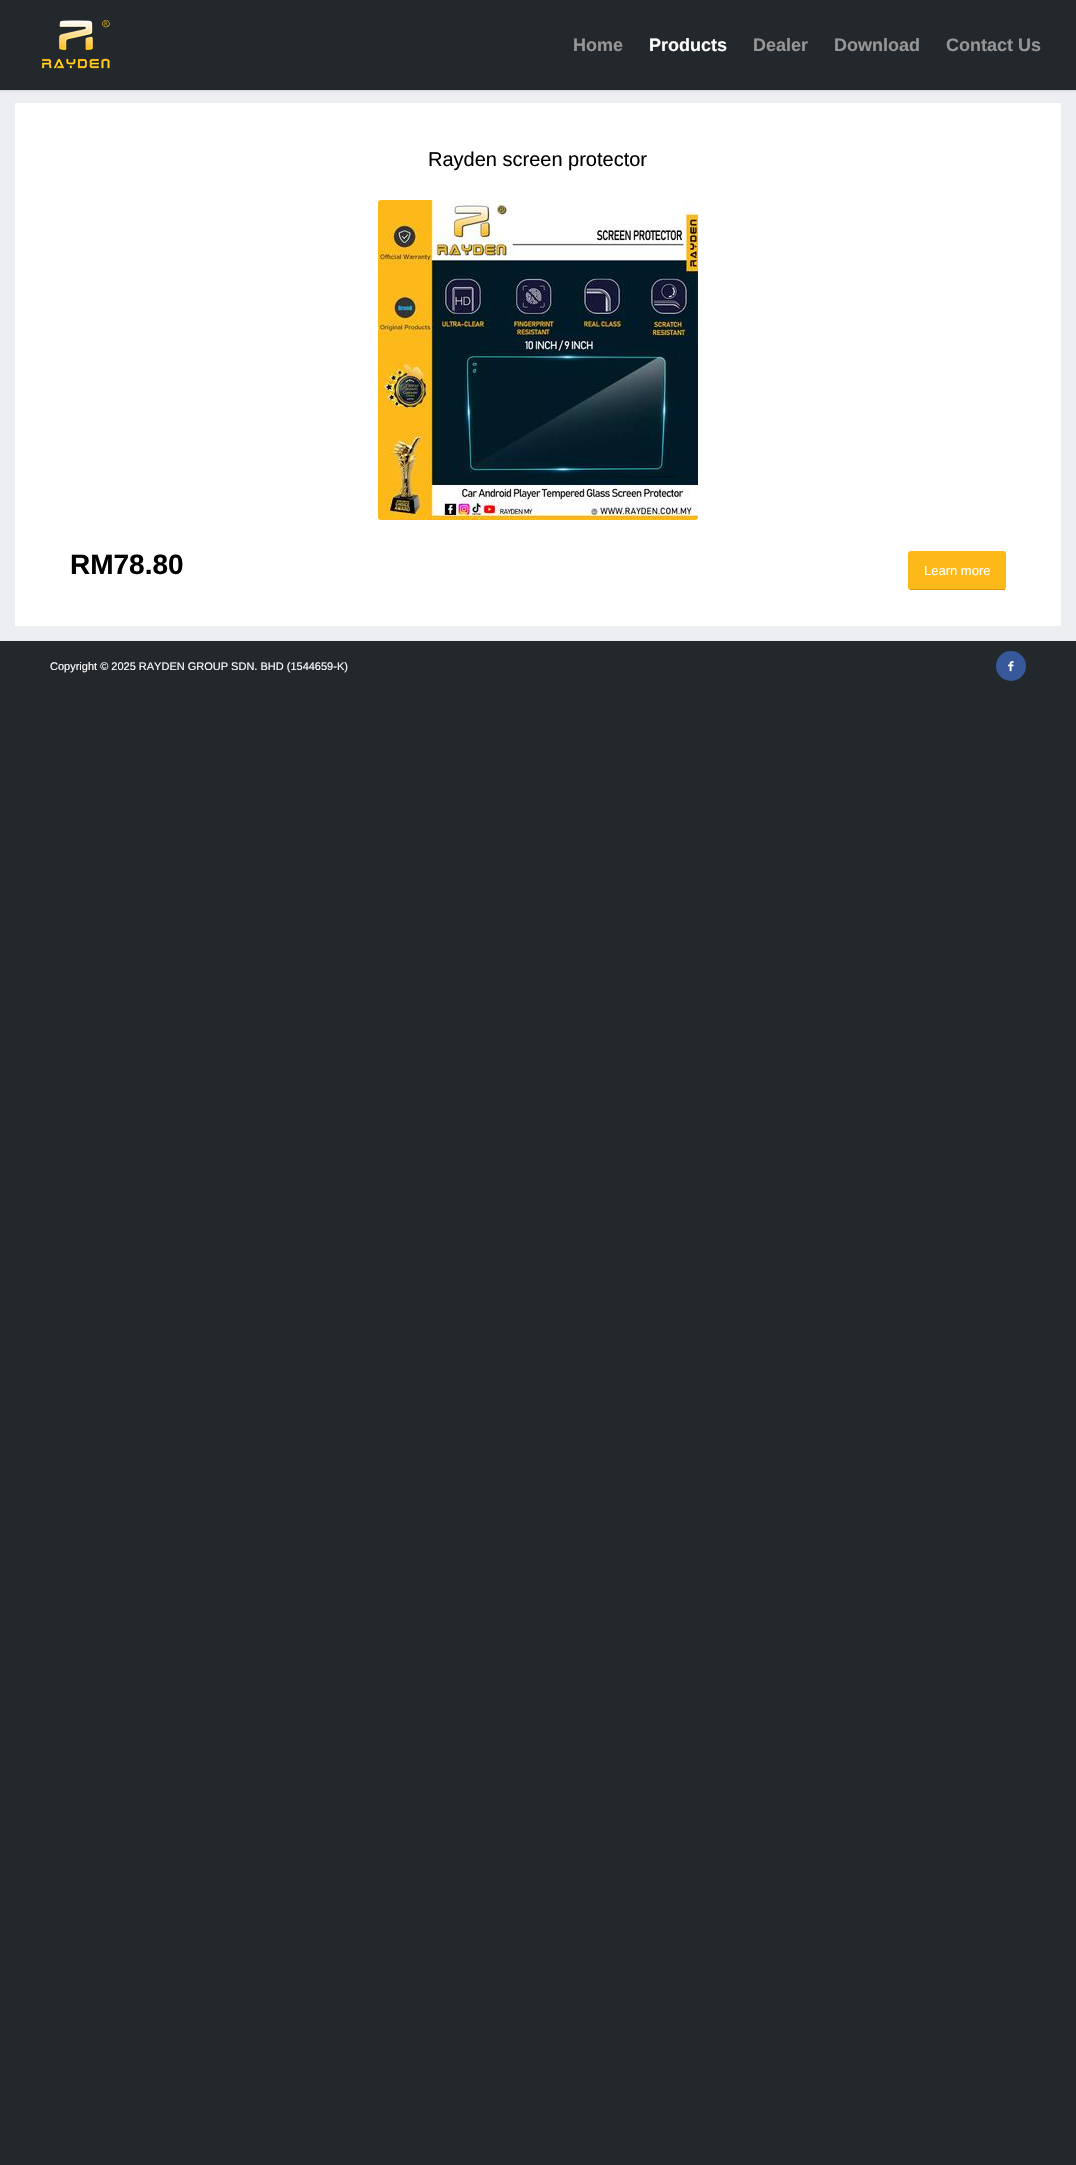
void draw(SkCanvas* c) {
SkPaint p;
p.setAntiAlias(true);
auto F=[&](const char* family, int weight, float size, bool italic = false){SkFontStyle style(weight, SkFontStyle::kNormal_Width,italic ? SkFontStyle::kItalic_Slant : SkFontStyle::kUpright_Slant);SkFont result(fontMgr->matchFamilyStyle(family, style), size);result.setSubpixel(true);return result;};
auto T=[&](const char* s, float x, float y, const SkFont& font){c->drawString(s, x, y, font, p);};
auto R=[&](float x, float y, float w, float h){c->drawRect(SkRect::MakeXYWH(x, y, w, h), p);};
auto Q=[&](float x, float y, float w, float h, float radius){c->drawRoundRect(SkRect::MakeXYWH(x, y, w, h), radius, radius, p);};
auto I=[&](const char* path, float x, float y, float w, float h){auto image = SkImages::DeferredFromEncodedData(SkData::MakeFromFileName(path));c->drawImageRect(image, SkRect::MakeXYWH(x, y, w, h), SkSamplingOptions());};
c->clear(0xff23282d);
p.setColor(0xffeceef1);
R(0,90,1076,550);
p.setColor(0x1a000000);
p.setMaskFilter(SkMaskFilter::MakeBlur(kNormal_SkBlurStyle, 1));
c->drawRect(SkRect::MakeXYWH(-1,-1,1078,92),p);
p.setMaskFilter(nullptr);
p.setColor(0xff23282d);
R(0,0,1076,90);
I("1.png",42,20,68,49);
auto f1 = F("Liberation Sans",700,18);
p.setColor(0xff969696);
T("Home",573,51,f1);
p.setColor(0xffffffff);
T("Products",649,51,f1);
p.setColor(0xff969696);
T("Dealer",753,51,f1);
T("Download",834,51,f1);
T("Contact Us",946,51,f1);
p.setColor(0xffffffff);
R(15,103,1046,523);
auto f2 = F("Liberation Sans",400,20);
p.setColor(0xff000000);
T("Rayden screen protector",428,166,f2);
I("2.png",378,200,320,320);
auto f3 = F("Liberation Sans",700,28);
T("RM78.80",70,574,f3);
p.setColor(0xfffdb919);
Q(908,551,98,39,3);
p.setColor(0xffdb9707);
R(910,589,95,1);
auto f4 = F("Liberation Sans",400,13);
p.setColor(0xffffffff);
T("Learn more",924,575,f4);
p.setColor(0xffebebeb);
R(0,640,1076,1);
auto f5 = F("Liberation Sans",400,11);
p.setColor(0xffffffff);
T("Copyright © 2025 RAYDEN GROUP SDN. BHD (1544659-K)",50,670,f5);
p.setColor(0xff37589b);
c->drawCircle(1011,666,15,p);
I("3.png",1008,661,6,11);
}
